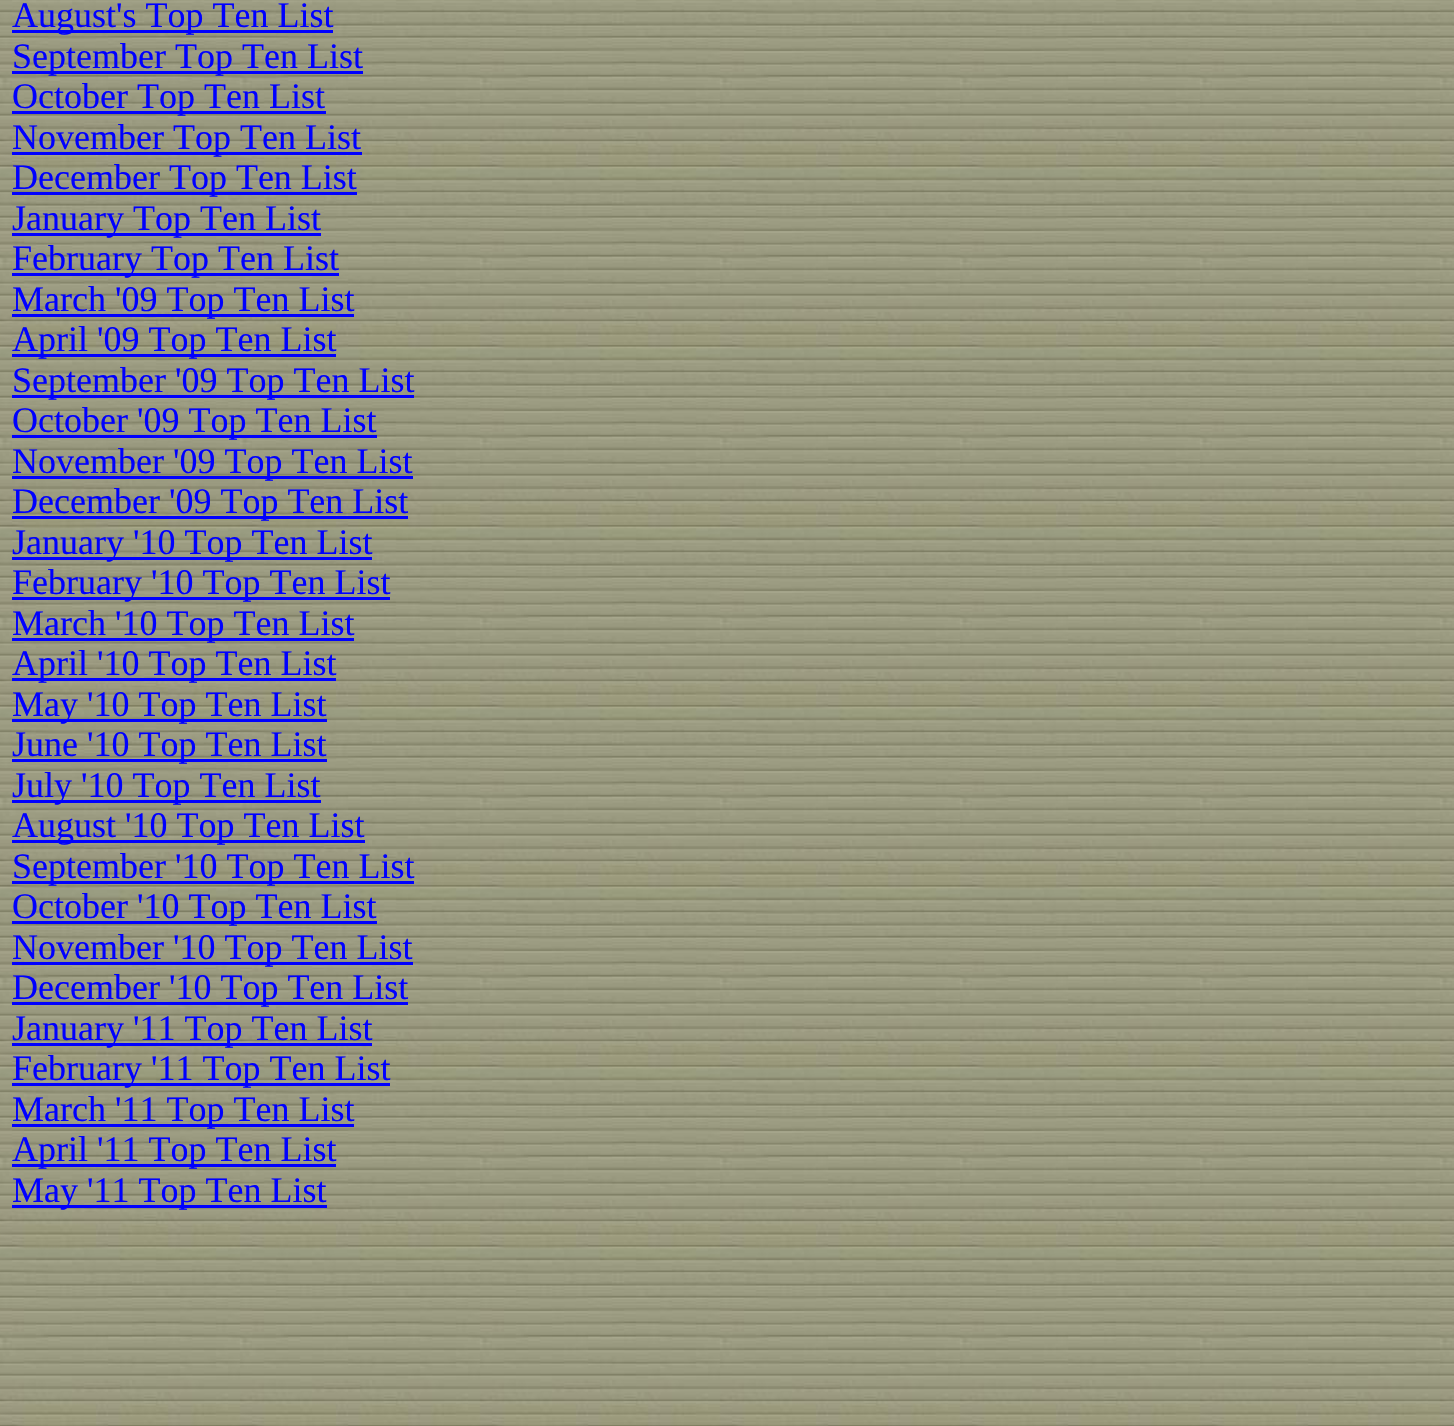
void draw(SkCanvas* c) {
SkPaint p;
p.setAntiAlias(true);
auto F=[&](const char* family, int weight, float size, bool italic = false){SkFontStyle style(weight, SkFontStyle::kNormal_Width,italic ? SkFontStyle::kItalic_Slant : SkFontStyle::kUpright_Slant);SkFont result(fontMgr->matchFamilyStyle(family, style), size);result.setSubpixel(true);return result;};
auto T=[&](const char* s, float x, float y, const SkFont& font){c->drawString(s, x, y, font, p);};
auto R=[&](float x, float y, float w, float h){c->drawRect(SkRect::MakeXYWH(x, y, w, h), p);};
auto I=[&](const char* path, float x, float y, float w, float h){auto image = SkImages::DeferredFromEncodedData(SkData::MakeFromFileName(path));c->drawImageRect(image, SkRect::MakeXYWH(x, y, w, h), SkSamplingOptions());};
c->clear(0xffffffff);
I("1.png",0,0,1454,1426);
p.setColor(0xff0000ff);
R(12,30,321,3);
auto f1 = F("Liberation Serif",400,36);
T("August's Top Ten List",12,27,f1);
R(12,71,351,3);
T("September Top Ten List",12,68,f1);
R(12,111,314,3);
T("October Top Ten List",12,108,f1);
R(12,152,350,3);
T("November Top Ten List",12,149,f1);
R(12,192,345,3);
T("December Top Ten List",12,189,f1);
R(12,233,309,3);
T("January Top Ten List",12,230,f1);
R(12,273,327,3);
T("February Top Ten List",12,270,f1);
R(12,314,342,3);
T("March '09 Top Ten List",12,311,f1);
R(12,354,324,3);
T("April '09 Top Ten List",12,351,f1);
R(12,395,402,3);
T("September '09 Top Ten List",12,392,f1);
R(12,435,365,3);
T("October '09 Top Ten List",12,432,f1);
R(12,476,401,3);
T("November '09 Top Ten List",12,473,f1);
R(12,516,396,3);
T("December '09 Top Ten List",12,513,f1);
R(12,557,360,3);
T("January '10 Top Ten List",12,554,f1);
R(12,597,378,3);
T("February '10 Top Ten List",12,594,f1);
R(12,638,342,3);
T("March '10 Top Ten List",12,635,f1);
R(12,678,324,3);
T("April '10 Top Ten List",12,675,f1);
R(12,719,315,3);
T("May '10 Top Ten List",12,716,f1);
R(12,759,315,3);
T("June '10 Top Ten List",12,756,f1);
R(12,800,309,3);
T("July '10 Top Ten List",12,797,f1);
R(12,840,353,3);
T("August '10 Top Ten List",12,837,f1);
R(12,881,402,3);
T("September '10 Top Ten List",12,878,f1);
R(12,921,365,3);
T("October '10 Top Ten List",12,918,f1);
R(12,962,401,3);
T("November '10 Top Ten List",12,959,f1);
R(12,1002,396,3);
T("December '10 Top Ten List",12,999,f1);
R(12,1043,360,3);
T("January '11 Top Ten List",12,1040,f1);
R(12,1083,378,3);
T("February '11 Top Ten List",12,1080,f1);
R(12,1124,342,3);
T("March '11 Top Ten List",12,1121,f1);
R(12,1164,324,3);
T("April '11 Top Ten List",12,1161,f1);
R(12,1205,315,3);
T("May '11 Top Ten List",12,1202,f1);
}
